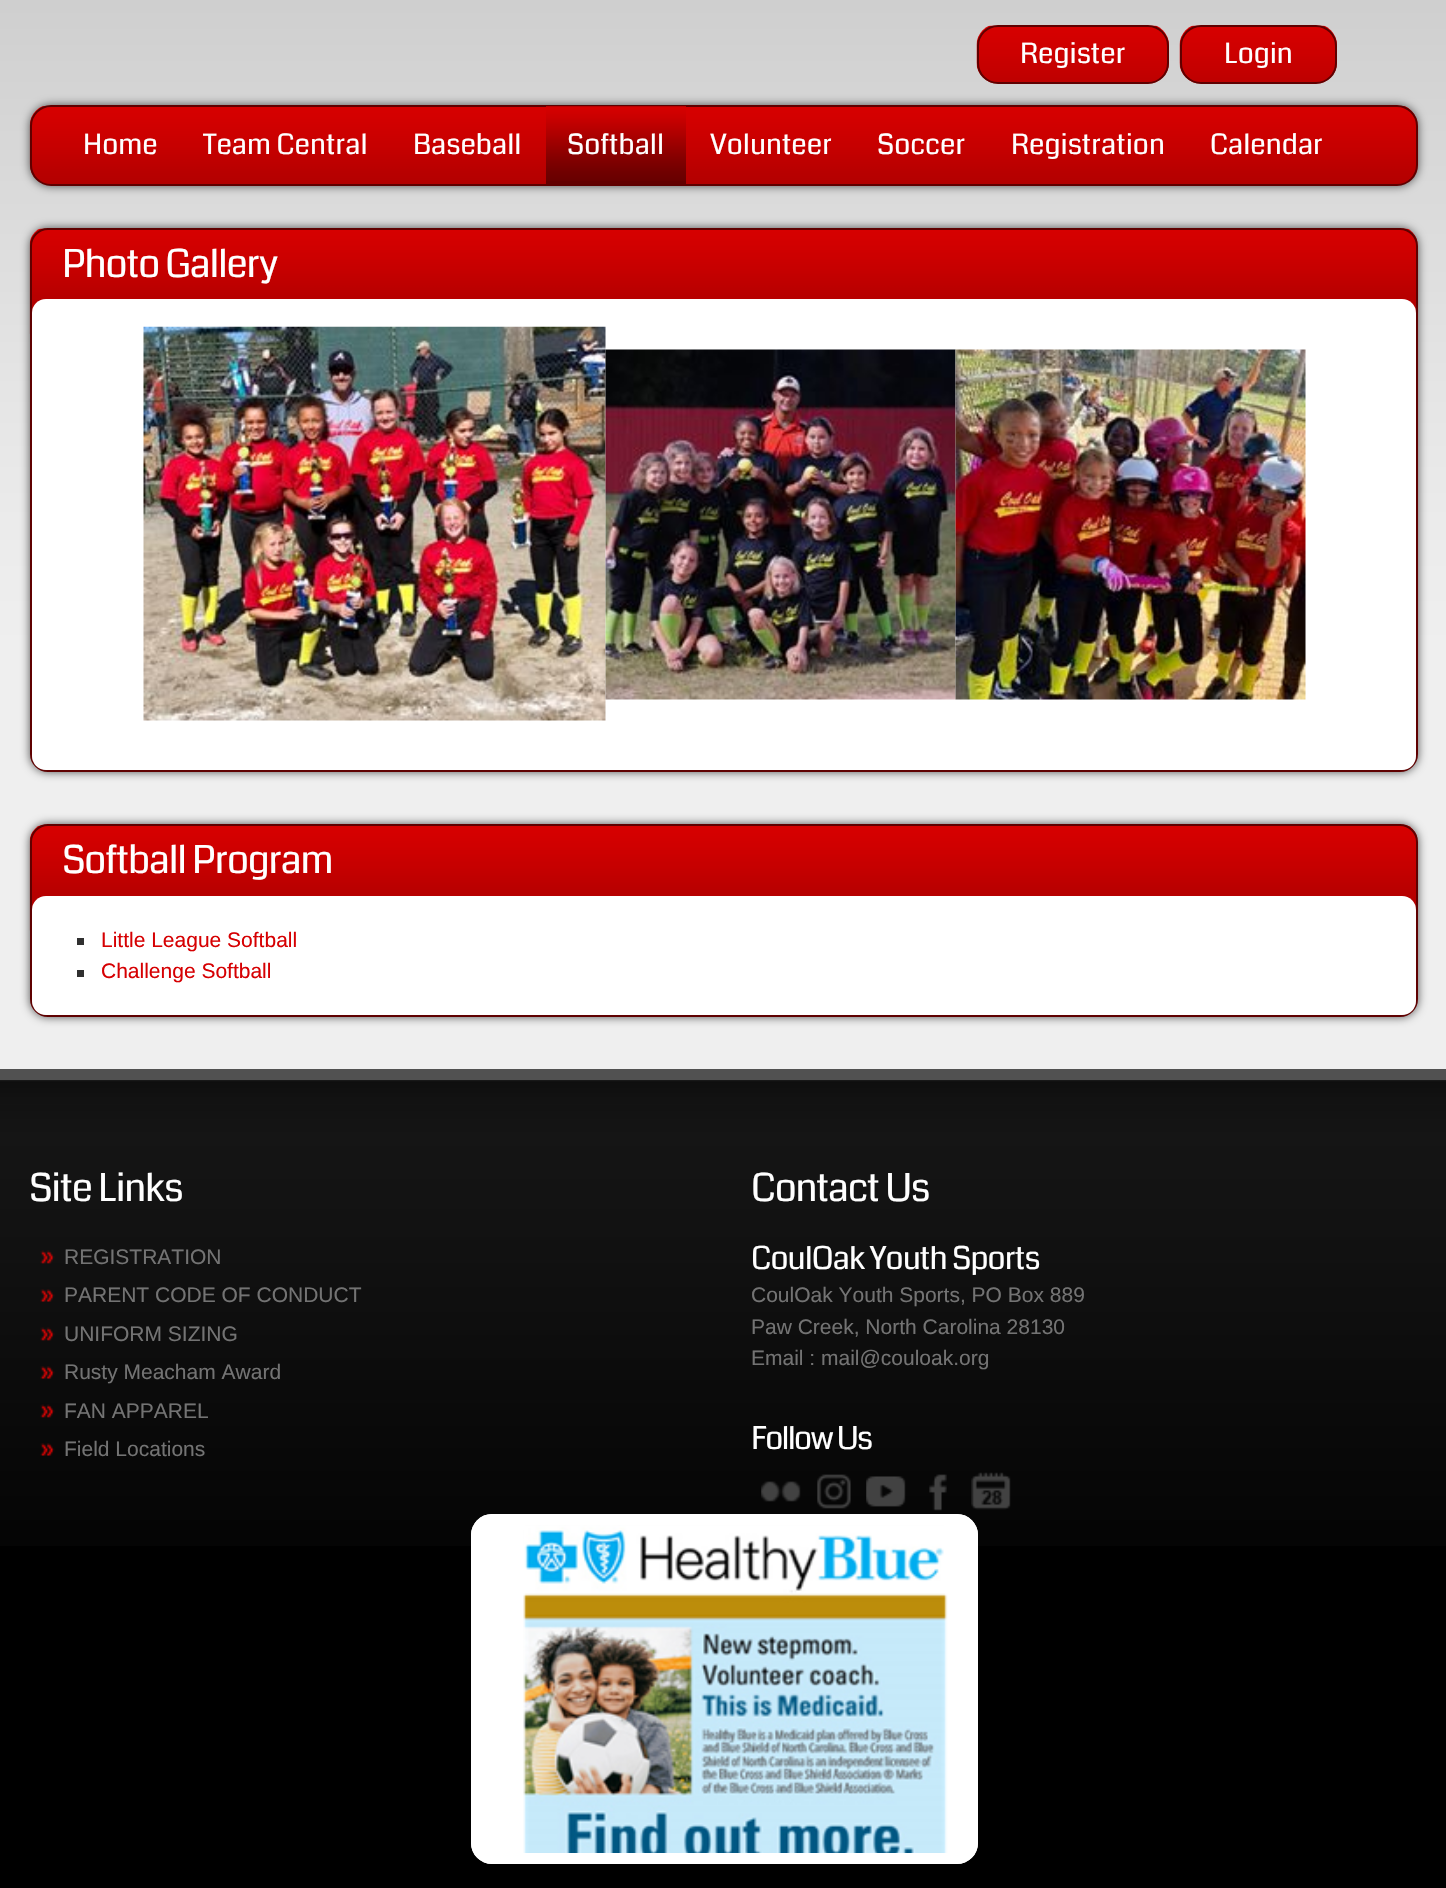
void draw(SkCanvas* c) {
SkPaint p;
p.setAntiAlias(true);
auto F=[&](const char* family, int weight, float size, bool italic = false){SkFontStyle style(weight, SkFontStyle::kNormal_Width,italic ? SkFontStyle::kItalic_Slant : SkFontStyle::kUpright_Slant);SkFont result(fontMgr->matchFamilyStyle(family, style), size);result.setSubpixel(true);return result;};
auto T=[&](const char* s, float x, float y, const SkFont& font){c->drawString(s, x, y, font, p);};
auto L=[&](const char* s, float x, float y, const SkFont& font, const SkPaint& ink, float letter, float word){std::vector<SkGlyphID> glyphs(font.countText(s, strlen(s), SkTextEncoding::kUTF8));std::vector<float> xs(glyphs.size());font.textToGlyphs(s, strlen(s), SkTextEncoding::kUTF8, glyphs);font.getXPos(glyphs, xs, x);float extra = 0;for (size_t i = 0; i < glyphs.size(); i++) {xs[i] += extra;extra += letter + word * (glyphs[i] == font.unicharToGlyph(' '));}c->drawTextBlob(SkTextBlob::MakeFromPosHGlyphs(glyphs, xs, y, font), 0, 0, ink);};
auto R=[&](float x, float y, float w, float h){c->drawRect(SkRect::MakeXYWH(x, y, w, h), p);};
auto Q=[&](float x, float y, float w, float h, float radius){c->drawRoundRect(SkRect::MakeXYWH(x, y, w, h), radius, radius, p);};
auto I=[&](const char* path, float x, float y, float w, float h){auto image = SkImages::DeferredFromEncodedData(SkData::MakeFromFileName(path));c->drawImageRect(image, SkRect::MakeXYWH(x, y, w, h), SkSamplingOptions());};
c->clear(0xffffffff);
I("1.png",0,0,1446,1069);
I("2.png",976,25,193,59);
p.setStroke(true);
p.setStrokeWidth(2);
p.setColor(0xff5f0000);
c->drawRoundRect(SkRect::MakeXYWH(978,26,190,57),20,20,p);
auto f1 = F("Coda",400,28);
p.setStroke(false);
p.setColor(0xffffffff);
T("Register",1020,63,f1);
I("3.png",1179,25,158,59);
p.setStroke(true);
p.setColor(0xff5f0000);
c->drawRoundRect(SkRect::MakeXYWH(1181,26,155,57),20,20,p);
p.setStroke(false);
p.setColor(0xffffffff);
T("Login",1224,63,f1);
p.setColor(0xff515151);
p.setMaskFilter(SkMaskFilter::MakeBlur(kNormal_SkBlurStyle, 5));
c->drawRoundRect(SkRect::MakeXYWH(30,105,1388,81),21,21,p);
p.setMaskFilter(nullptr);
I("4.png",29,106,1389,79);
p.setStroke(true);
p.setColor(0xff5f0000);
c->drawRoundRect(SkRect::MakeXYWH(31,106,1386,79),20,20,p);
p.setStroke(false);
p.setColor(0xffffffff);
T("Home",83,154,f1);
T("Team Central",203,154,f1);
T("Baseball",413,154,f1);
p.setColor(0xff630000);
R(546,181,140,3);
I("5.png",546,106,140,75);
p.setColor(0xffffffff);
T("Softball",567,154,f1);
T("Volunteer",710,154,f1);
T("Soccer",877,154,f1);
T("Registration",1011,154,f1);
T("Calendar",1210,154,f1);
p.setColor(0xff515151);
p.setMaskFilter(SkMaskFilter::MakeBlur(kNormal_SkBlurStyle, 5));
c->drawRoundRect(SkRect::MakeXYWH(30,228,1388,544),18,18,p);
p.setMaskFilter(nullptr);
I("6.png",29,228,1389,106);
p.setStroke(true);
p.setColor(0xff5f0000);
c->drawRoundRect(SkRect::MakeXYWH(31,229,1386,542),17,17,p);
auto f2 = F("Coda",400,38.5);
p.setStroke(false);
p.setColor(0xffffffff);
L("Photo Gallery",62,277,f2,p,-1.2,0);
Q(32,299,1384,471,14);
I("7.png",143,326,463,395);
I("8.png",605,349,351,351);
I("9.png",955,349,351,351);
p.setColor(0xff515151);
p.setMaskFilter(SkMaskFilter::MakeBlur(kNormal_SkBlurStyle, 5));
c->drawRoundRect(SkRect::MakeXYWH(30,824,1388,193),18,18,p);
p.setMaskFilter(nullptr);
I("10.png",29,825,1389,106);
p.setStroke(true);
p.setColor(0xff5f0000);
c->drawRoundRect(SkRect::MakeXYWH(31,825,1386,191),17,17,p);
p.setStroke(false);
p.setColor(0xffffffff);
L("Softball Program",62,873,f2,p,-1.2,0);
Q(32,896,1384,119,14);
p.setColor(0xff303030);
R(77,938,7,7);
auto f3 = F("Liberation Sans",400,21);
p.setColor(0xffd60002);
T("Little League Softball",101,947,f3);
p.setColor(0xff303030);
R(77,970,7,7);
p.setColor(0xffd60002);
T("Challenge Softball",101,978,f3);
p.setColor(0xff000000);
R(0,1546,1446,342);
I("11.png",0,1080,1446,466);
p.setColor(0xff515151);
R(0,1069,1446,11);
p.setColor(0xffffffff);
L("Site Links",29,1201,f2,p,-1.2,0);
I("12.png",40,1250,15,14);
p.setColor(0xff737373);
T("REGISTRATION",64,1264,f3);
I("13.png",40,1289,15,13);
T("PARENT CODE OF CONDUCT",64,1302,f3);
I("14.png",40,1327,15,14);
T("UNIFORM SIZING",64,1341,f3);
I("15.png",40,1366,15,13);
T("Rusty Meacham Award",64,1379,f3);
I("16.png",40,1404,15,14);
T("FAN APPAREL",64,1418,f3);
I("17.png",40,1443,15,13);
T("Field Locations",64,1456,f3);
p.setColor(0xffffffff);
L("Contact Us",751,1201,f2,p,-1.2,0);
auto f4 = F("Coda",400,31.5);
L("CoulOak Youth Sports",751,1269,f4,p,-.9,0);
p.setColor(0xff737373);
T("CoulOak Youth Sports, PO Box 889",751,1302,f3);
T("Paw Creek, North Carolina 28130",751,1334,f3);
T("Email : mail@couloak.org",751,1365,f3);
p.setColor(0xffffffff);
L("Follow Us",751,1449,f4,p,-1.75,0);
I("18.png",761,1481,40,21);
I("19.png",817,1474,34,35);
I("20.png",866,1476,40,31);
I("21.png",929,1474,18,37);
I("22.png",971,1472,40,38);
Q(471,1514,507,350,21);
I("23.png",523,1525,425,328);
p.setStroke(true);
p.setStrokeWidth(11);
c->drawRoundRect(SkRect::MakeXYWH(476.5,1519.5,496,339),15.5,15.5,p);
}
